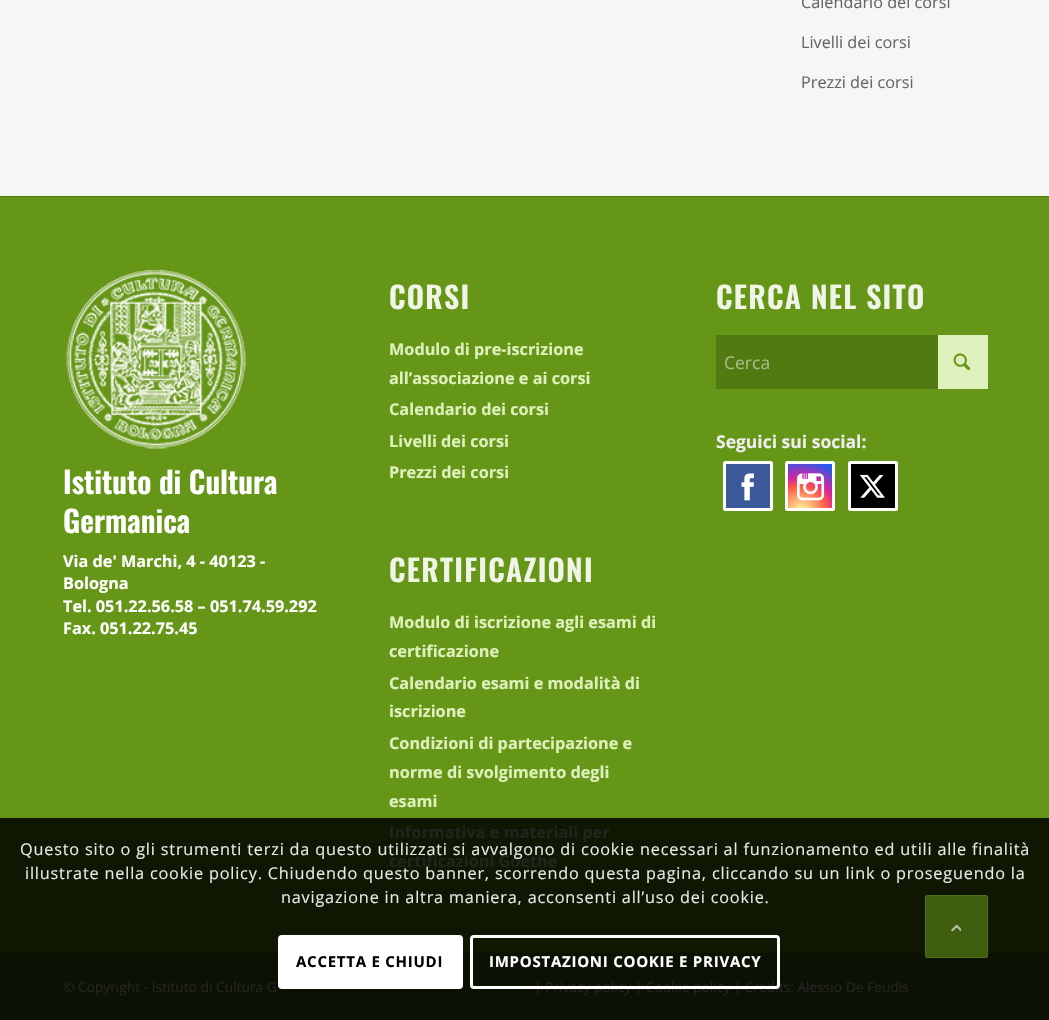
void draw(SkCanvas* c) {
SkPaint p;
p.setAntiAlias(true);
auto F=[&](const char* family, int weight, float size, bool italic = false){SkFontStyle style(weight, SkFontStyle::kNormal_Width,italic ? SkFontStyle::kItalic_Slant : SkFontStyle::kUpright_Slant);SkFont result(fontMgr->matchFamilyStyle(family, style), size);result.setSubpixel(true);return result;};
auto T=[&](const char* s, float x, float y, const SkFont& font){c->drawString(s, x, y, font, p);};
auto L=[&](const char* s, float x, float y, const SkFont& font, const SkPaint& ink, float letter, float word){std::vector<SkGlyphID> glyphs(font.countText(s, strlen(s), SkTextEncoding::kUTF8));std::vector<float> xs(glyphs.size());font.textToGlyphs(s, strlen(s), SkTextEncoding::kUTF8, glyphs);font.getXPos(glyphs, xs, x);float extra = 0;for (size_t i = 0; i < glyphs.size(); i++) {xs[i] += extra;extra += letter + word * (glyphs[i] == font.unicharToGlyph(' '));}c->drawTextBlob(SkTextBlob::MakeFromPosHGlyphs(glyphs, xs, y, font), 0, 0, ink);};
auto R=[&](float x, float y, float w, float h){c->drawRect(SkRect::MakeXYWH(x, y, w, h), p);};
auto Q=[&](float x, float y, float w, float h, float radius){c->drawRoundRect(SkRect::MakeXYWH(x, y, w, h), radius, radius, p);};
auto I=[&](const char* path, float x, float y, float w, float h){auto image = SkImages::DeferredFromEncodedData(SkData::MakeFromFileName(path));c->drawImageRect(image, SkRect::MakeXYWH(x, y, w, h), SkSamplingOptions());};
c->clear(0xfff6f6f6);
auto f1 = F("Open Sans",400,16.25);
p.setColor(0xff666666);
T("Calendario dei corsi",801,8,f1);
T("Livelli dei corsi",801,48,f1);
T("Prezzi dei corsi",801,88,f1);
p.setColor(0xff659617);
R(0,197,1049,621);
p.setColor(0xff0f1703);
R(0,818,1049,135);
p.setColor(0xff527a12);
R(0,196,1049,1);
auto f2 = F("Oswald",600,30);
p.setColor(0xfff0f5e8);
L("CORSI",389,309,f2,p,1.25,0);
auto f3 = F("Open Sans",700,16.25);
p.setColor(0xffdef0bb);
T("Modulo di pre-iscrizione",389,355,f3);
T("all’associazione e ai corsi",389,384,f3);
T("Calendario dei corsi",389,415,f3);
T("Livelli dei corsi",389,447,f3);
T("Prezzi dei corsi",389,478,f3);
p.setColor(0xfff0f5e8);
L("CERTIFICAZIONI",389,582,f2,p,1.25,0);
p.setColor(0xffdef0bb);
T("Modulo di iscrizione agli esami di",389,628,f3);
T("certificazione",389,657,f3);
T("Calendario esami e modalità di",389,689,f3);
T("iscrizione",389,717,f3);
T("Condizioni di partecipazione e",389,749,f3);
T("norme di svolgimento degli",389,778,f3);
T("esami",389,807,f3);
p.setColor(0xff21241c);
T("Informativa e materiali per",389,838,f3);
T("certificazioni Goethe",389,867,f3);
p.setColor(0xfff0f5e8);
L("CERCA NEL SITO",716,309,f2,p,1.25,0);
p.setColor(0xffdef0bb);
R(938,335,50,54);
p.setColor(0xff527a12);
R(716,335,222,54);
auto f4 = F("Open Sans",400,17.5);
p.setColor(0xffa9bd89);
T("Cerca",724,369,f4);
I("1.png",953,353,18,18);
auto f5 = F("Open Sans",700,17.5);
p.setColor(0xffeeeeee);
T("Seguici sui social:",716,448,f5);
p.setColor(0xff3b5998);
c->drawRoundRect(SkRect::MakeXYWH(724.5,462.5,47,47),1,1,p);
p.setStroke(true);
p.setStrokeWidth(3);
p.setColor(0xffffffff);
c->drawRoundRect(SkRect::MakeXYWH(724.5,462.5,47,47),1,1,p);
I("2.png",741,473,13,28);
p.setStroke(false);
{
const SkColor colors[] = {0xfffdf497,0xfffdf497,0xfffd5949,0xffd6249f,0xff285aeb};
const float stops[] = {0,.05,.45,.6,.9};
p.setShader(SkGradientShader::MakeRadial({801,512}, 58, colors, stops, 5, SkTileMode::kClamp));
p.setAlpha(255);
}
R(788,464,44,44);
p.setStroke(true);
p.setShader(nullptr);
p.setColor(0xffffffff);
c->drawRoundRect(SkRect::MakeXYWH(786.5,462.5,47,47),1,1,p);
I("3.png",797,473,28,28);
p.setStroke(false);
p.setColor(0xff000000);
c->drawRoundRect(SkRect::MakeXYWH(849.5,462.5,47,47),1,1,p);
p.setStroke(true);
p.setColor(0xffffffff);
c->drawRoundRect(SkRect::MakeXYWH(849.5,462.5,47,47),1,1,p);
I("4.png",860,474,25,24);
I("5.png",66,269,181,180);
p.setStroke(false);
T("Istituto di Cultura",63,494,f2);
T("Germanica",63,533,f2);
T("Via de' Marchi, 4 - 40123 -",63,567,f3);
T("Bologna",63,589,f3);
c->save();
c->clipRect(SkRect::MakeXYWH(63,254,271,385));
T("Tel. 051.22.56.58 – 051.74.59.292",63,612,f3);
c->restore();
T("Fax. 051.22.75.45",63,634,f3);
p.setColor(0xff0c1203);
R(0,953,1049,67);
auto f6 = F("Open Sans",400,13.75);
p.setColor(0xff242424);
T("© Copyright - Istituto di Cultura G",63,992,f6);
T("| Privacy policy | Cookie policy | Credits: Alessio De Feudis",534,992,f6);
p.setColor(0xffe7e8e6);
L("Questo sito o gli strumenti terzi da questo utilizzati si avvalgono di cookie necessari al funzionamento ed utili alle finalità",20,855,f1,p,.81,0);
L("illustrate nella cookie policy. Chiudendo questo banner, scorrendo questa pagina, cliccando su un link o proseguendo la",25,879,f1,p,.81,0);
L("navigazione in altra maniera, acconsenti all’uso dei cookie.",281,903,f1,p,.81,0);
p.setColor(0xffffffff);
Q(278,935,185,54,4);
auto f7 = F("Open Sans",700,15);
p.setColor(0xff000000);
L("ACCETTA E CHIUDI",296,967,f7,p,.75,0);
p.setStroke(true);
p.setColor(0xffffffff);
c->drawRoundRect(SkRect::MakeXYWH(471.5,936.5,307,51),2.5,2.5,p);
p.setStroke(false);
L("IMPOSTAZIONI COOKIE E PRIVACY",489,967,f7,p,.75,0);
p.setColor(0xb3527a12);
Q(925,895,63,63,2.5);
p.setStroke(true);
p.setStrokeWidth(1);
c->drawRoundRect(SkRect::MakeXYWH(925.5,895.5,62,62),2,2,p);
I("6.png",951,925,10,7);
}
